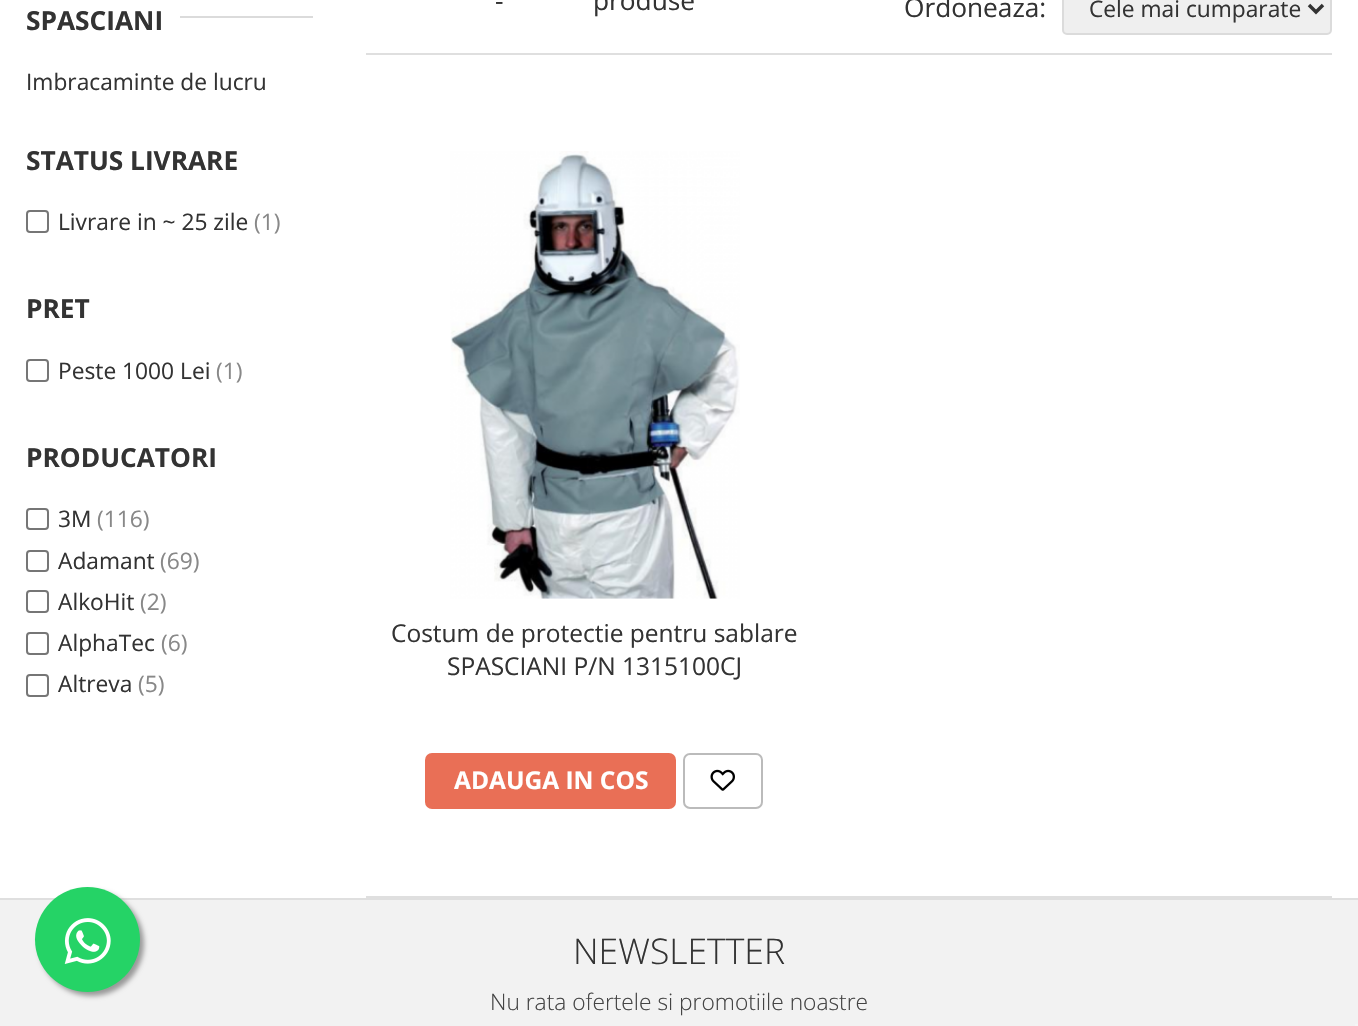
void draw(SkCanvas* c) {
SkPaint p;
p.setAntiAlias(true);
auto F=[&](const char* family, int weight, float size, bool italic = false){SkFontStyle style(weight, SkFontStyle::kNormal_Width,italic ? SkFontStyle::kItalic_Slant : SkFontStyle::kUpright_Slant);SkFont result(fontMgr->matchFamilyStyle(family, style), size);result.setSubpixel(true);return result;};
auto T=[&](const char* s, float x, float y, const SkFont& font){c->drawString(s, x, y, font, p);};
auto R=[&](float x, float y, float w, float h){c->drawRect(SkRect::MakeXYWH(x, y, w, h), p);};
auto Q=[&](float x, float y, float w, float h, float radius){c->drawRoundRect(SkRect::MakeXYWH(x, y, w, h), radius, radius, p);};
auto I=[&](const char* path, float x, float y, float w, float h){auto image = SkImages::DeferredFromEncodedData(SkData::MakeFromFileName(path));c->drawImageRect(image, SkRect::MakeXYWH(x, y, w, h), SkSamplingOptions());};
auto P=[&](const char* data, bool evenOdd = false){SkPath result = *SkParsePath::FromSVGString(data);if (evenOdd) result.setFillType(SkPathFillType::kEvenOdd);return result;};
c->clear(0xffffffff);
auto f1 = F("Open Sans",700,26.25);
p.setColor(0xff333333);
T("SPASCIANI",26,30,f1);
p.setColor(0xffdbdbdb);
R(180,16,133,2);
auto f2 = F("Open Sans",400,22.75);
p.setColor(0xff333333);
T("Imbracaminte de lucru",26,90,f2);
T("STATUS LIVRARE",26,170,f1);
p.setStroke(true);
p.setStrokeWidth(2);
p.setColor(0xff767676);
c->drawRoundRect(SkRect::MakeXYWH(27,211,21,21),3,3,p);
p.setStroke(false);
p.setColor(0xff333333);
T("Livrare in ~ 25 zile",58,230,f2);
p.setColor(0xff888888);
T("(1)",254,230,f2);
p.setColor(0xff333333);
T("PRET",26,318,f1);
p.setStroke(true);
p.setColor(0xff767676);
c->drawRoundRect(SkRect::MakeXYWH(27,360,21,21),3,3,p);
p.setStroke(false);
p.setColor(0xff333333);
T("Peste 1000 Lei",58,379,f2);
p.setColor(0xff888888);
T("(1)",216,379,f2);
p.setColor(0xff333333);
T("PRODUCATORI",26,467,f1);
p.setStroke(true);
p.setColor(0xff767676);
c->drawRoundRect(SkRect::MakeXYWH(27,509,21,20),3,3,p);
p.setStroke(false);
p.setColor(0xff333333);
T("3M",58,527,f2);
p.setColor(0xff888888);
T("(116)",97,527,f2);
p.setStroke(true);
p.setColor(0xff767676);
c->drawRoundRect(SkRect::MakeXYWH(27,551,21,20),3,3,p);
p.setStroke(false);
p.setColor(0xff333333);
T("Adamant",58,569,f2);
p.setColor(0xff888888);
T("(69)",160,569,f2);
p.setStroke(true);
p.setColor(0xff767676);
c->drawRoundRect(SkRect::MakeXYWH(27,591,21,21),3,3,p);
p.setStroke(false);
p.setColor(0xff333333);
T("AlkoHit",58,610,f2);
p.setColor(0xff888888);
T("(2)",140,610,f2);
p.setStroke(true);
p.setColor(0xff767676);
c->drawRoundRect(SkRect::MakeXYWH(27,633,21,21),3,3,p);
p.setStroke(false);
p.setColor(0xff333333);
T("AlphaTec",58,651,f2);
p.setColor(0xff888888);
T("(6)",161,651,f2);
p.setStroke(true);
p.setColor(0xff767676);
c->drawRoundRect(SkRect::MakeXYWH(27,675,21,21),3,3,p);
p.setStroke(false);
p.setColor(0xff333333);
T("Altreva",58,692,f2);
p.setColor(0xff888888);
T("(5)",138,692,f2);
p.setColor(0xffdfdfdf);
R(366,53,966,2);
auto f3 = F("Open Sans",400,26.25);
p.setColor(0xff333333);
T("-",495,10,f3);
T("produse",593,10,f3);
T("Ordoneaza:",904,17,f3);
p.setColor(0xffefefef);
c->drawRoundRect(SkRect::MakeXYWH(1063,-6,268,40),4,4,p);
p.setStroke(true);
p.setColor(0xffdbdbdb);
c->drawRoundRect(SkRect::MakeXYWH(1063,-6,268,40),4,4,p);
p.setStrokeWidth(3.5);
p.setColor(0xff333333);
c->drawPath(P("M1309 5l7 7l7-7"),p);
p.setStroke(false);
T("Cele mai cumparate",1089,17,f2);
p.setColor(0xffdfdfdf);
R(366,896,966,2);
I("1.png",450,151,290,448);
auto f4 = F("Open Sans",400,24.5);
p.setColor(0xff333333);
T("Costum de protectie pentru sablare",391,642,f4);
T("SPASCIANI P/N 1315100CJ",447,675,f4);
p.setColor(0xffe96f56);
Q(425,753,251,56,7);
auto f5 = F("Open Sans",700,24.5);
p.setColor(0xffffffff);
T("ADAUGA IN COS",454,789,f5);
p.setStroke(true);
p.setStrokeWidth(2);
p.setColor(0xffbbbbbb);
c->drawRoundRect(SkRect::MakeXYWH(684,754,78,54),6,6,p);
I("2.png",710,769,25,22);
p.setStroke(false);
p.setColor(0xfff2f2f2);
R(0,900,1358,126);
p.setColor(0xffdfdfdf);
R(0,898,1358,2);
auto f6 = F("Open Sans",300,35.5);
p.setColor(0xff333333);
T("NEWSLETTER",573,964,f6);
auto f7 = F("Open Sans",300,22.75);
p.setColor(0xff444444);
T("Nu rata ofertele si promotiile noastre",490,1010,f7);
p.setColor(0xff999999);
p.setMaskFilter(SkMaskFilter::MakeBlur(kNormal_SkBlurStyle, 2.5));
c->drawRoundRect(SkRect::MakeXYWH(39,891,105,105),52.5,52.5,p);
p.setMaskFilter(nullptr);
p.setColor(0xff25d366);
c->drawCircle(87.5,939.5,52.5,p);
I("3.png",64,918,47,46);
p.setColor(0xfff5f5f5);
R(1355,1024,3,2);
}
